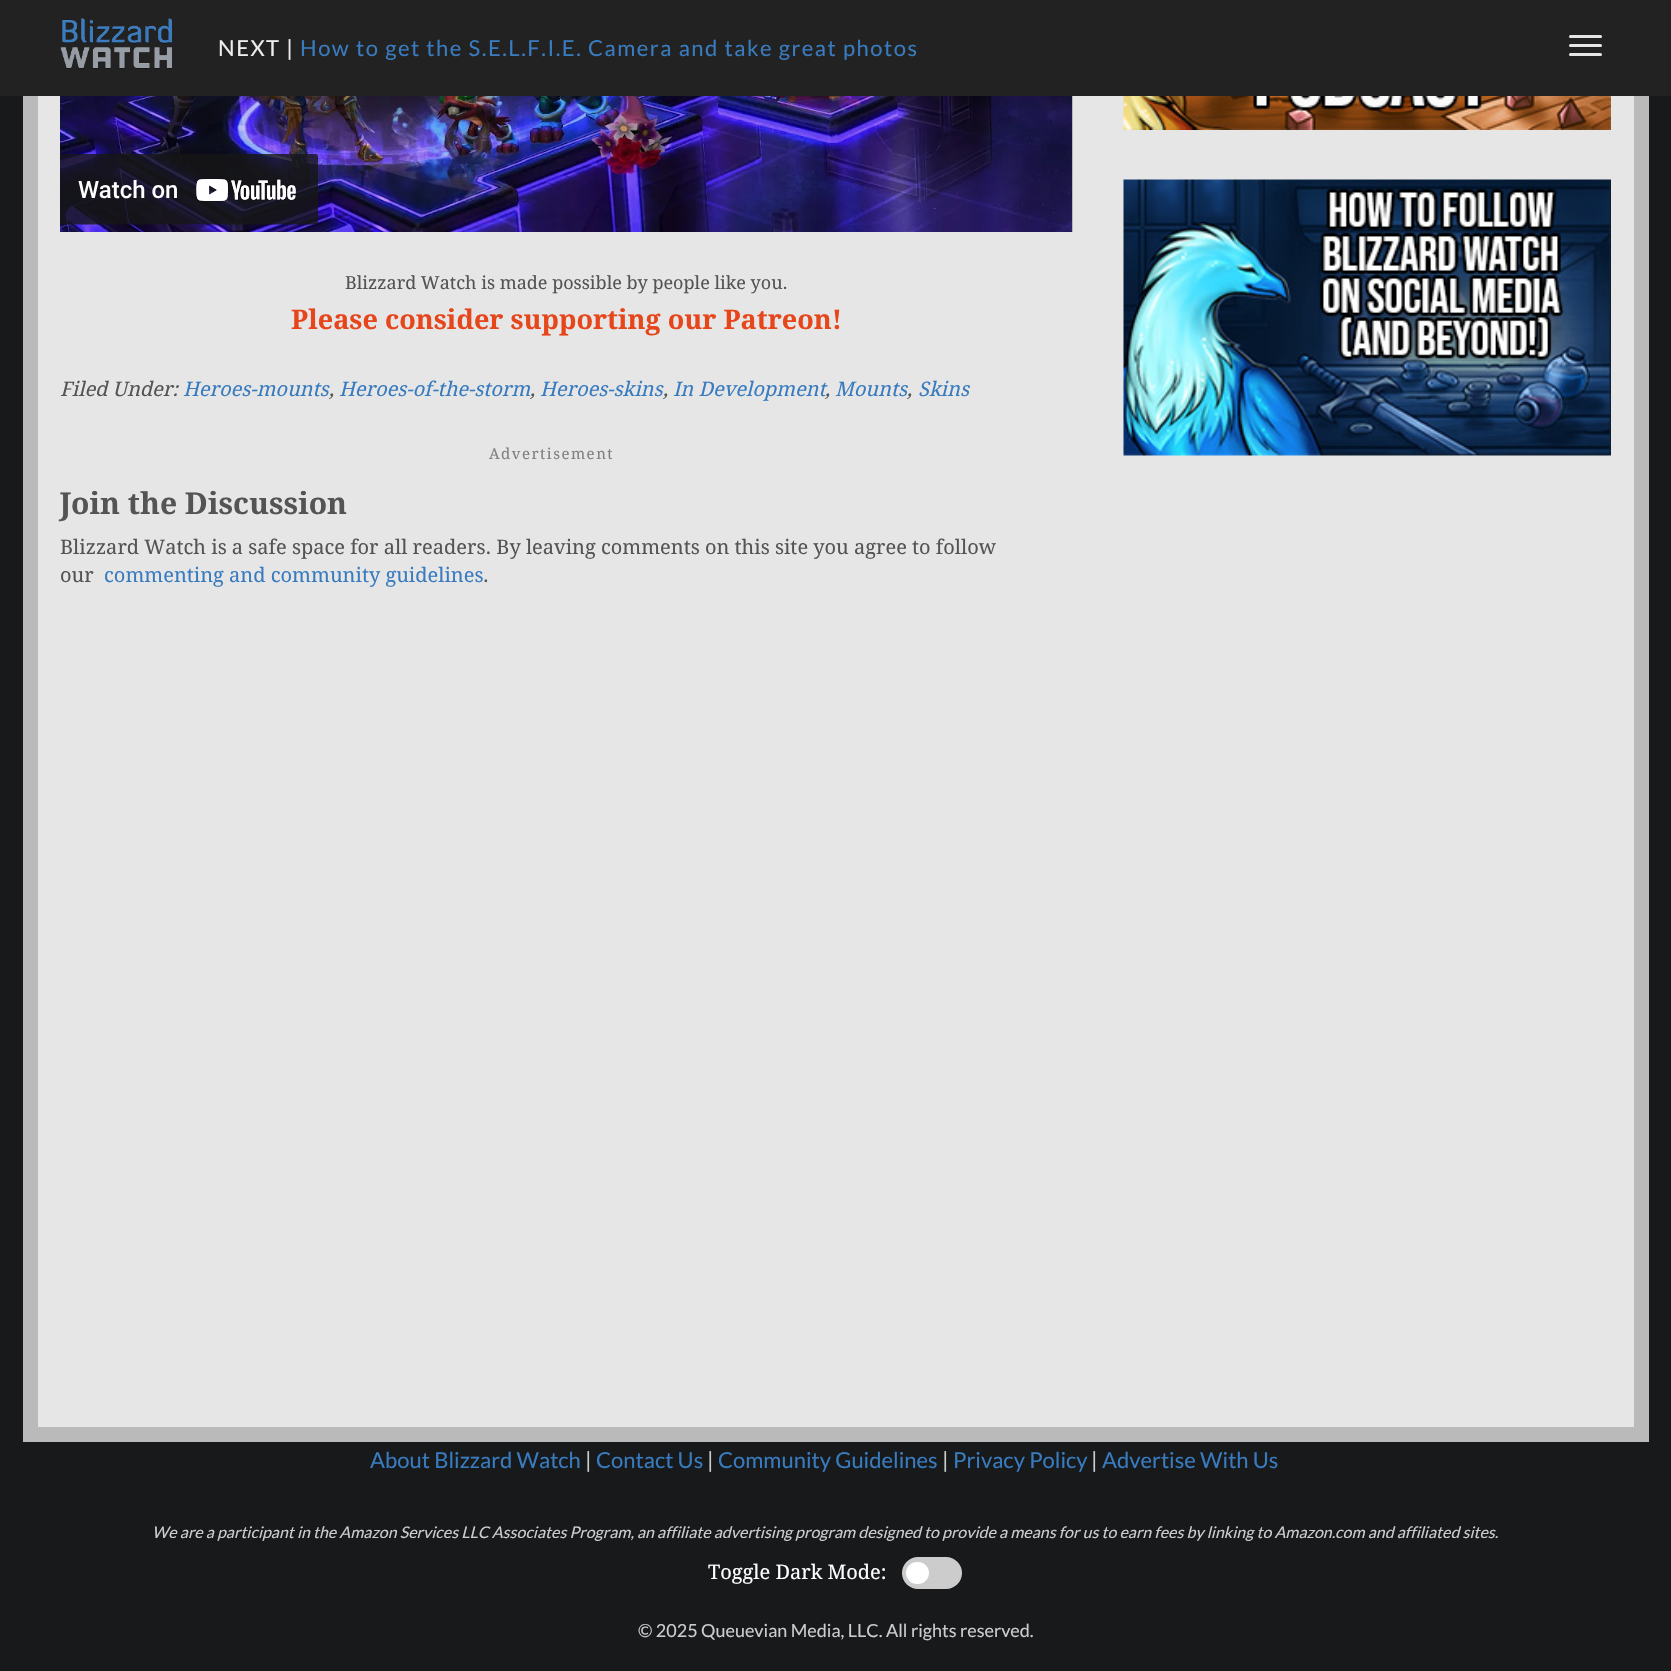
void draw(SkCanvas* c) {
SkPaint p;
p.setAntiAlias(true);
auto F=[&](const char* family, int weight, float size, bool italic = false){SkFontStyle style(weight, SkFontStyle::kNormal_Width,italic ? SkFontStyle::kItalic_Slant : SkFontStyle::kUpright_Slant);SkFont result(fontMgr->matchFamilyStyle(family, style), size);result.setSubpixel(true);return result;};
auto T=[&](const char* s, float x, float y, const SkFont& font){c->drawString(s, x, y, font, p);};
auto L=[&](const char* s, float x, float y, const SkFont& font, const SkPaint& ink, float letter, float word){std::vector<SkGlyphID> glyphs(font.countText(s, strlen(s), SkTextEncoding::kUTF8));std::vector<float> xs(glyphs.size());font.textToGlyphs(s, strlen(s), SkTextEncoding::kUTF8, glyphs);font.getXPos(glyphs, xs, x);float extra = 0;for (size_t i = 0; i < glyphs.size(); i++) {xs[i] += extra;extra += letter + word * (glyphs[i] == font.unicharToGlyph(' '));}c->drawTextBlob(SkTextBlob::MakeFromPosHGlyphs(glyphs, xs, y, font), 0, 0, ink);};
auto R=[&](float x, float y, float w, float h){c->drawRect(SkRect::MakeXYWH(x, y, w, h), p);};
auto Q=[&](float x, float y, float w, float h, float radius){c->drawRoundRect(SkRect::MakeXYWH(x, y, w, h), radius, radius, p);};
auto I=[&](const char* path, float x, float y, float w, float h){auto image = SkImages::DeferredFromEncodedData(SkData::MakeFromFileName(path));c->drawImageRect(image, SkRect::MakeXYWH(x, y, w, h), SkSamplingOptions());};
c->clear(0xff17191b);
p.setColor(0xffe6e6e6);
R(38,96,1596,1331);
p.setStroke(true);
p.setStrokeWidth(15);
p.setColor(0xffbababa);
c->drawRect(SkRect::MakeXYWH(30.5,-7.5,1611,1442),p);
p.setStroke(false);
p.setColor(0xff222222);
R(0,0,1671,96);
I("1.png",60,18,112,51);
auto f1 = F("Lato",400,22);
p.setColor(0xffeeeeee);
L("NEXT |",218,56,f1,p,1.5,0);
p.setColor(0xff387bbf);
L("How to get the S.E.L.F.I.E. Camera and take great photos",300,56,f1,p,1.5,0);
p.setColor(0xffe6e6e6);
Q(1569,35,33,3,1.5);
Q(1569,44,33,3,1.5);
Q(1569,53,33,3,1.5);
I("2.png",60,96,1013,136);
auto f2 = F("Droid Serif",400,18);
p.setColor(0xff545454);
T("Blizzard Watch is made possible by people like you.",345,289,f2);
auto f3 = F("Droid Serif",700,27);
p.setColor(0xffe6461a);
T("Please consider supporting our Patreon!",291,329,f3);
auto f4 = F("Droid Serif",400,20,true);
p.setColor(0xff545454);
T("Filed Under:",60,396,f4);
p.setColor(0xff387bbf);
T("Heroes-mounts",183,396,f4);
p.setColor(0xff545454);
T(",",329,396,f4);
p.setColor(0xff387bbf);
T("Heroes-of-the-storm",339,396,f4);
p.setColor(0xff545454);
T(",",530,396,f4);
p.setColor(0xff387bbf);
T("Heroes-skins",540,396,f4);
p.setColor(0xff545454);
T(",",663,396,f4);
p.setColor(0xff387bbf);
T("In Development",673,396,f4);
T("Mounts",835,396,f4);
T("Skins",918,396,f4);
p.setColor(0xff545454);
T(",",825,396,f4);
T(",",907,396,f4);
auto f5 = F("Droid Serif",400,15);
p.setColor(0xff808080);
L("Advertisement",489,459,f5,p,1.5,0);
auto f6 = F("Droid Serif",700,30);
p.setColor(0xff545454);
T("Join the Discussion",60,514,f6);
auto f7 = F("Droid Serif",400,20);
T("Blizzard Watch is a safe space for all readers. By leaving comments on this site you agree to follow",60,554,f7);
T("our",60,582,f7);
p.setColor(0xff387bbf);
T("commenting and community guidelines",104,582,f7);
p.setColor(0xff545454);
T(".",483,582,f7);
I("3.png",1123,96,488,34);
I("4.png",1123,179,488,277);
p.setColor(0xff387bbf);
T("About Blizzard Watch",370,1468,f1);
p.setColor(0xffcccccc);
T("|",585,1468,f1);
p.setColor(0xff387bbf);
T("Contact Us",596,1468,f1);
p.setColor(0xffcccccc);
T("|",707,1468,f1);
p.setColor(0xff387bbf);
T("Community Guidelines",718,1468,f1);
p.setColor(0xffcccccc);
T("|",942,1468,f1);
p.setColor(0xff387bbf);
T("Privacy Policy",953,1468,f1);
p.setColor(0xffcccccc);
T("|",1091,1468,f1);
p.setColor(0xff387bbf);
T("Advertise With Us",1102,1468,f1);
auto f8 = F("Lato",400,16,true);
p.setColor(0xffcccccc);
T("We are a participant in the Amazon Services LLC Associates Program, an affiliate advertising program designed to provide a means for us to earn fees by linking to Amazon.com and affiliated sites.",152,1538,f8);
p.setColor(0xffffffff);
T("Toggle Dark Mode:",708,1579,f7);
p.setColor(0xffcccccc);
Q(902,1557,60,32,16);
p.setColor(0xffffffff);
Q(906,1562,23,22,11);
auto f9 = F("Lato",400,18);
p.setColor(0xffcccccc);
T("© 2025 Queuevian Media, LLC. All rights reserved.",638,1637,f9);
}
